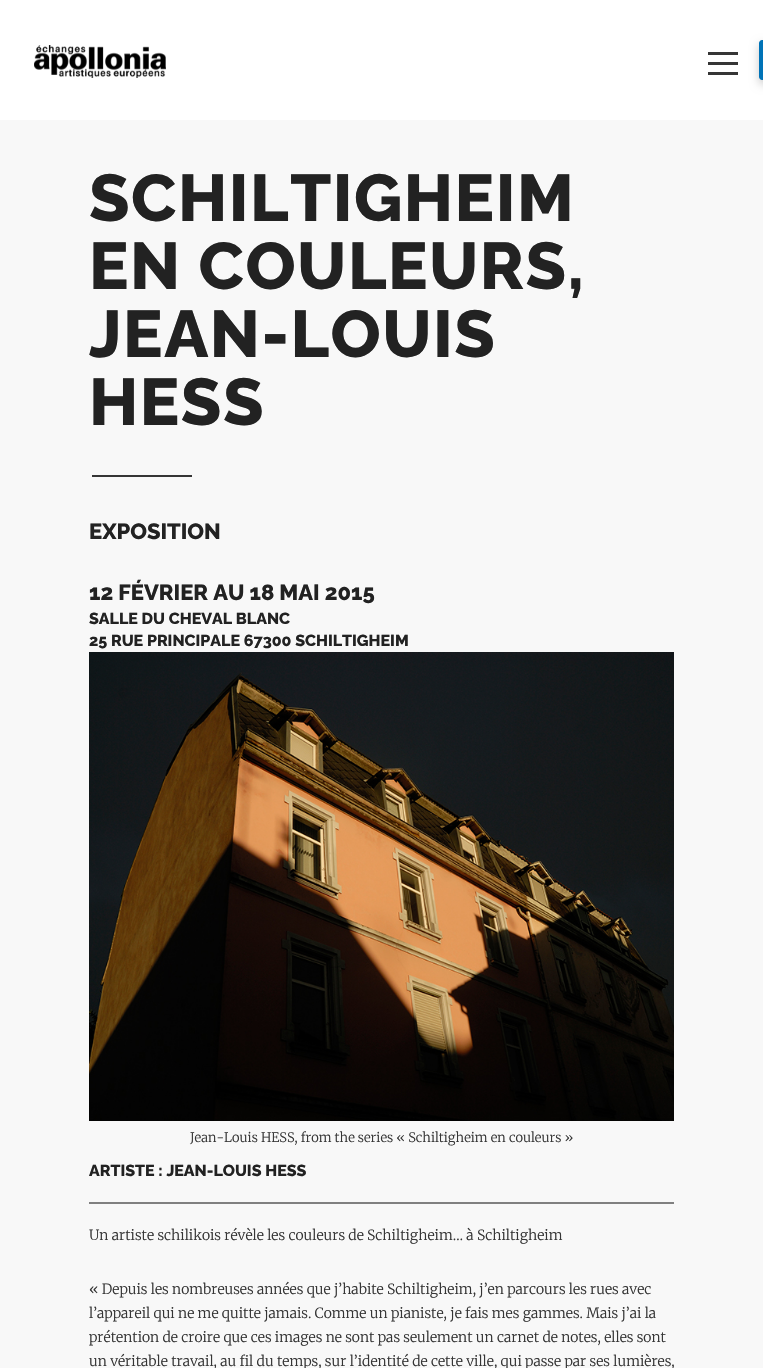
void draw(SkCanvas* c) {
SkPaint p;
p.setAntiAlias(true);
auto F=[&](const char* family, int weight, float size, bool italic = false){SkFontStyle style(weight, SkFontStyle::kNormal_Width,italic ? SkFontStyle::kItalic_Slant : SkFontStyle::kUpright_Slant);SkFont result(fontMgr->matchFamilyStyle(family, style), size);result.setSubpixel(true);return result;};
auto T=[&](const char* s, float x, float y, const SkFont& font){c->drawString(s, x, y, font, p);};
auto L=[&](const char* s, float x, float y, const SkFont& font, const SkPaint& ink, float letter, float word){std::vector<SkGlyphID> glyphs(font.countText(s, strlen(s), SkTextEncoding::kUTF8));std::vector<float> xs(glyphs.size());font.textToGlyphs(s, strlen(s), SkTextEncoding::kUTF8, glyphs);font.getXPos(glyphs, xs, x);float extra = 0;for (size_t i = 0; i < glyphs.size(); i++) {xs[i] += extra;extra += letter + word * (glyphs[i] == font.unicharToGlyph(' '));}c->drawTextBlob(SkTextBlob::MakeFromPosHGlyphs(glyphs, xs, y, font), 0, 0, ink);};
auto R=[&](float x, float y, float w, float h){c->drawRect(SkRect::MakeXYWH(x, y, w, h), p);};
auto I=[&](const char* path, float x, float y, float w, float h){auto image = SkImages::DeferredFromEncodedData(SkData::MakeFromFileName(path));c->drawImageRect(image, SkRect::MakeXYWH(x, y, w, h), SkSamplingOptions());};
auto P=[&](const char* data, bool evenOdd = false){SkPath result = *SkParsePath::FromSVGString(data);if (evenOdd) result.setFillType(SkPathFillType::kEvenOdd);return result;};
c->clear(0xfff8f8f8);
p.setColor(0xffffffff);
R(0,0,763,120);
I("1.png",34,45,132,33);
p.setColor(0xff353535);
R(708,62,30,3);
R(708,52,30,3);
R(708,72,30,3);
p.setColor(0x33000000);
p.setMaskFilter(SkMaskFilter::MakeBlur(kNormal_SkBlurStyle, 5));
c->drawRoundRect(SkRect::MakeXYWH(759,44,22,40),3,3,p);
p.setMaskFilter(nullptr);
p.setColor(0xff0073b7);
c->drawPath(P("M762 40h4v40h-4c-1.5 0-3-1.5-3-3v-34c0-1.5 1.5-3 3-3z"),p);
auto f1 = F("Raleway",100,66);
p.setColor(0xff222222);
L("SCHILTIGHEIM",89,221,f1,p,1.5,0);
L("EN COULEURS,",89,289,f1,p,1.5,0);
L("JEAN-LOUIS",89,357,f1,p,1.5,0);
L("HESS",89,425,f1,p,1.5,0);
p.setColor(0xff353535);
R(92,475,100,2);
auto f2 = F("Raleway",100,22);
p.setColor(0xff222222);
T("EXPOSITION",89,539,f2);
T("12 FÉVRIER AU 18 MAI 2015",89,600,f2);
auto f3 = F("Raleway",100,16);
T("SALLE DU CHEVAL BLANC",89,624,f3);
T("25 RUE PRINCIPALE 67300 SCHILTIGHEIM",89,646,f3);
I("2.png",89,652,585,469);
auto f4 = F("Merriweather",300,13);
p.setColor(0xff353535);
T("Jean-Louis HESS, from the series « Schiltigheim en couleurs »",190,1142,f4);
p.setColor(0xff222222);
T("ARTISTE : JEAN-LOUIS HESS",89,1176,f3);
p.setColor(0xff808080);
R(89,1202,585,2);
auto f5 = F("Merriweather",300,14);
p.setColor(0xff353535);
T("Un artiste schilikois révèle les couleurs de Schiltigheim… à Schiltigheim",89,1240,f5);
T("« Depuis les nombreuses années que j’habite Schiltigheim, j’en parcours les rues avec",89,1294,f5);
T("l’appareil qui ne me quitte jamais. Comme un pianiste, je fais mes gammes. Mais j’ai la",89,1318,f5);
T("prétention de croire que ces images ne sont pas seulement un carnet de notes, elles sont",89,1342,f5);
T("un véritable travail, au fil du temps, sur l’identité de cette ville, qui passe par ses lumières,",89,1366,f5);
}
